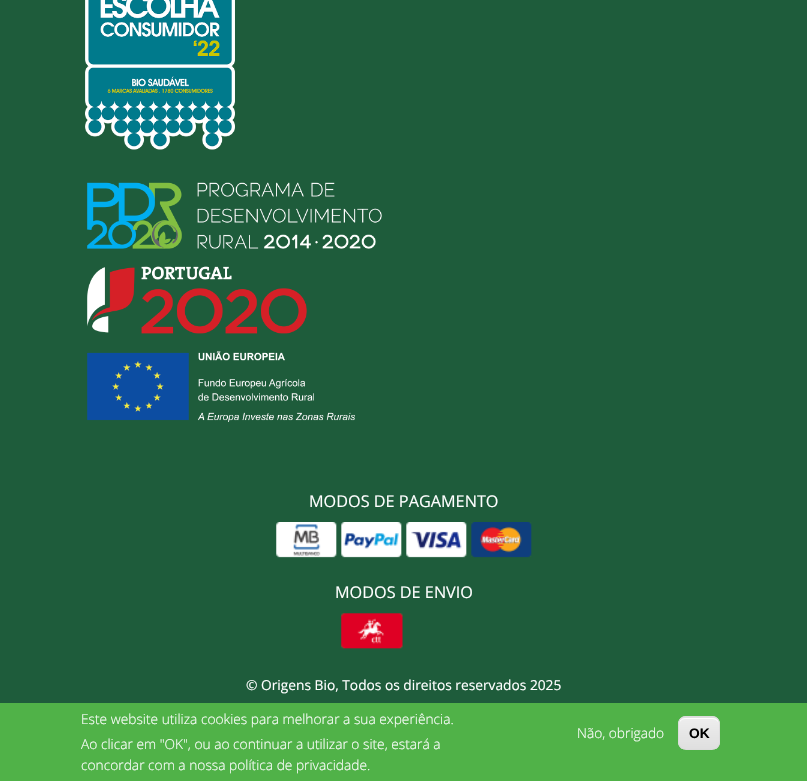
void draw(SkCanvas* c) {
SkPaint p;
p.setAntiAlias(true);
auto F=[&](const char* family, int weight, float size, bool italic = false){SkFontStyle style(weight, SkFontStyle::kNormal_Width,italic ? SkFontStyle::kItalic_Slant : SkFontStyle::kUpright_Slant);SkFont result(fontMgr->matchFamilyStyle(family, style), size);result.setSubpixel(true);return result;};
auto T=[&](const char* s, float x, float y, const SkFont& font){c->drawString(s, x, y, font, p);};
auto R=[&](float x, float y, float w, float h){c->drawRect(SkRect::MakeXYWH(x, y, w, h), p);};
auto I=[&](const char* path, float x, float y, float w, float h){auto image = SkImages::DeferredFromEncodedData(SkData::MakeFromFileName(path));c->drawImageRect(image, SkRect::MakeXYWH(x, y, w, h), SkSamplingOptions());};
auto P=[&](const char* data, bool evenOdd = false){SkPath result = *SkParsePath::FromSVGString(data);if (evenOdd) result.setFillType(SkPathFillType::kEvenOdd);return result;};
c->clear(0xff1e5c3b);
I("1.png",85,0,150,150);
I("2.png",87,182,295,240);
auto f1 = F("Open Sans",400,16.25);
p.setColor(0xffffffff);
T("MODOS DE PAGAMENTO",309,507,f1);
I("3.png",276,522,256,36);
T("MODOS DE ENVIO",335,598,f1);
I("4.png",341,613,62,36);
auto f2 = F("Open Sans",400,13.75);
T("© Origens Bio, Todos os direitos reservados 2025",246,690,f2);
p.setColor(0xff50b248);
R(0,703,807,78);
auto f3 = F("Open Sans",300,13.75);
p.setColor(0xffffffff);
T("Este website utiliza cookies para melhorar a sua experiência.",81,724,f3);
T("Ao clicar em \"OK\", ou ao continuar a utilizar o site, estará a",81,749,f3);
T("concordar com a nossa política de privacidade.",81,770,f3);
T("Não, obrigado",577,738,f3);
c->save();
c->clipPath(P("M686 716h26c4.5 0 8 3.5 8 8v18c0 4.5-3.5 8-8 8h-26c-4.5 0-8-3.5-8-8v-18c0-4.5 3.5-8 8-8z"),true);
{
const SkColor colors[] = {0xffededed,0xffdfdfdf};
const float stops[] = {.05,1};
const SkPoint ends[] = {{699,686}, {699,718}};
p.setShader(SkGradientShader::MakeLinear(ends, colors, stops, 2, SkTileMode::kClamp));
p.setAlpha(255);
}
R(678,716,42,2);
{
const SkColor colors[] = {0xffededed,0xffdfdfdf};
const float stops[] = {.05,1};
const SkPoint ends[] = {{699,718}, {699,749}};
p.setShader(SkGradientShader::MakeLinear(ends, colors, stops, 2, SkTileMode::kClamp));
p.setAlpha(255);
}
R(678,718,42,31);
c->restore();
p.setShader(nullptr);
p.setColor(0xffffffff);
c->drawPath(P("M685 719h27c4 0 7 3 7 6c0-7-5-7-11-7h-18c-6 0-11 0-11 7c0-3 3-6 6-6z"),p);
p.setStroke(true);
p.setStrokeWidth(1);
p.setColor(0xffdcdcdc);
c->drawRoundRect(SkRect::MakeXYWH(678.5,716.5,41,33),7.5,7.5,p);
auto f4 = F("Liberation Sans",700,13.75);
p.setStroke(false);
p.setColor(0xff000000);
T("OK",689,738,f4);
}
